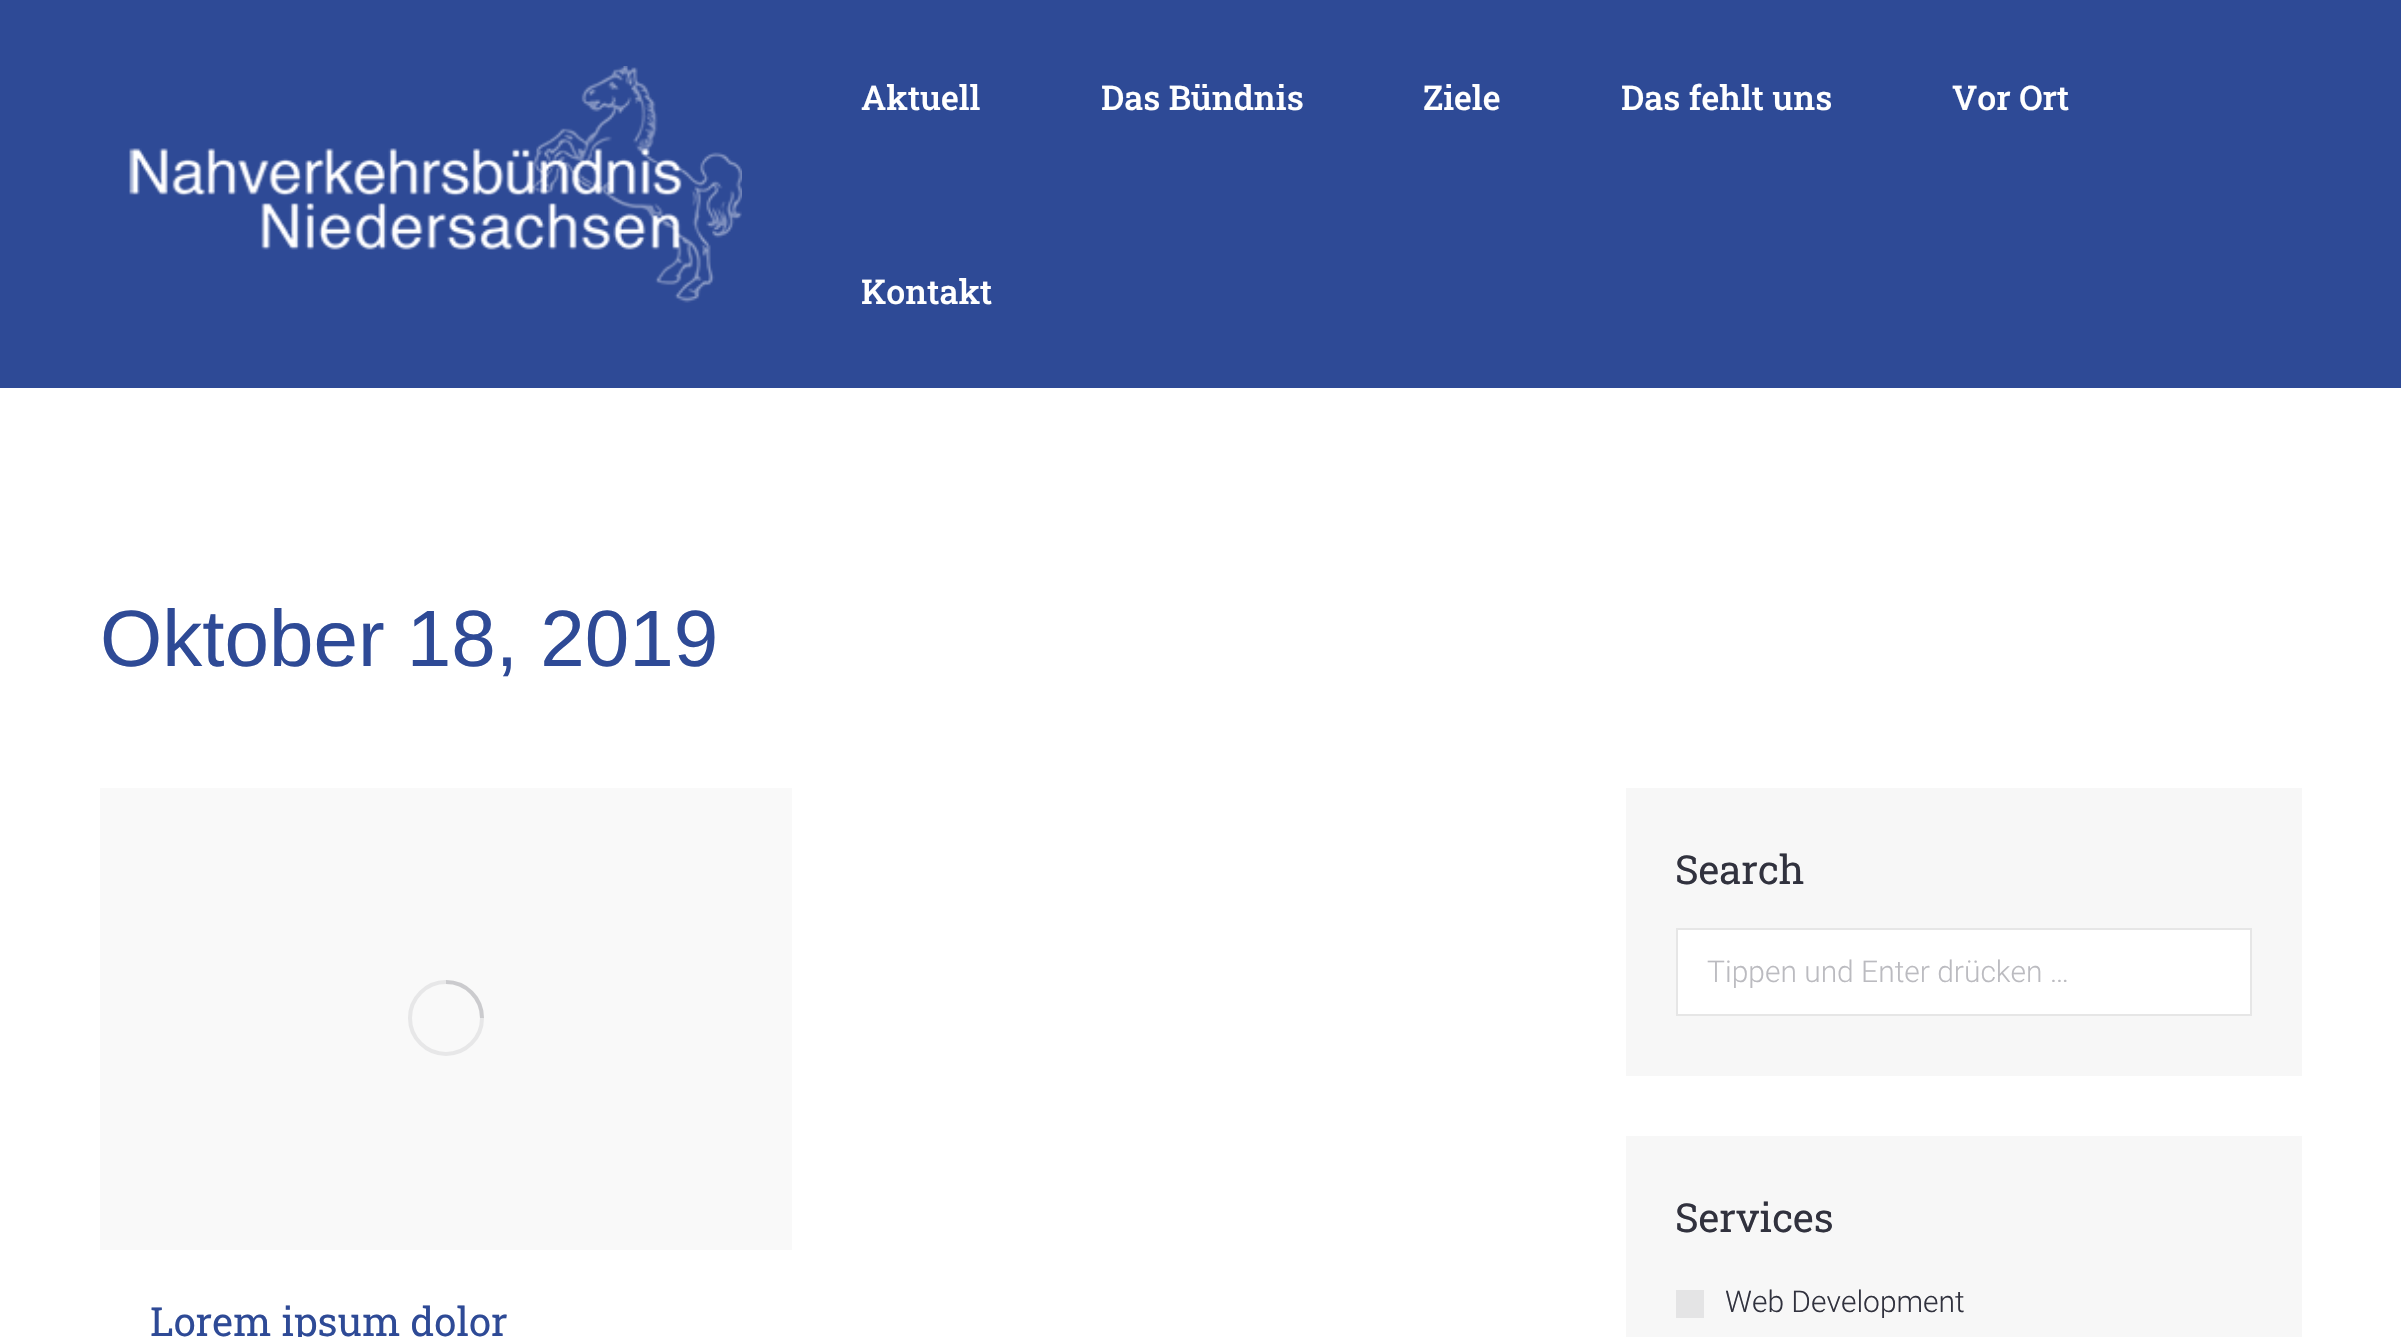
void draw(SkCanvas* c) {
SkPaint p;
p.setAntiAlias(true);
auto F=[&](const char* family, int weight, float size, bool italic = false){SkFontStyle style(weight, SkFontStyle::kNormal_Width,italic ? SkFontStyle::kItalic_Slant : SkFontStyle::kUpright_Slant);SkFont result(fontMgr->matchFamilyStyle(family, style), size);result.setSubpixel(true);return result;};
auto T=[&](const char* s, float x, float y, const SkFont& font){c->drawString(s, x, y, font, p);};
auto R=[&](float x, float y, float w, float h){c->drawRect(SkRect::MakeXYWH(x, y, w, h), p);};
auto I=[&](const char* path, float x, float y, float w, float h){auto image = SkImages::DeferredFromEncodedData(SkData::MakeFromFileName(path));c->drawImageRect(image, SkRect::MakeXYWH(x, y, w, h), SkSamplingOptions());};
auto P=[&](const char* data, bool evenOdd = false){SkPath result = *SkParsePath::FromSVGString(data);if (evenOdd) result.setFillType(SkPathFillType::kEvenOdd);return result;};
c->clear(0xffffffff);
p.setColor(0xff2e4a96);
R(0,0,2401,388);
I("1.png",129,66,613,237);
auto f1 = F("Roboto Slab",500,34);
p.setColor(0xffffffff);
T("Aktuell",861,110,f1);
T("Das Bündnis",1101,110,f1);
T("Ziele",1423,110,f1);
T("Das fehlt uns",1621,110,f1);
T("Vor Ort",1952,110,f1);
T("Kontakt",861,304,f1);
auto f2 = F("Liberation Sans",400,80);
p.setColor(0xff2e4a96);
T("Oktober 18, 2019",100,666,f2);
p.setColor(0xfff9f9f9);
R(100,788,692,462);
p.setStroke(true);
p.setStrokeWidth(4);
p.setColor(0xffe7e7e8);
c->drawCircle(446,1018,36,p);
p.setColor(0x40767780);
c->drawPath(P("M482 1018c0-20-16-36-36-36"),p);
auto f3 = F("Roboto Slab",400,40);
p.setStroke(false);
p.setColor(0xff2e4a96);
T("Lorem ipsum dolor",150,1336,f3);
p.setColor(0xfff7f7f7);
R(1626,788,676,288);
p.setColor(0xff31323e);
T("Search",1675,884,f3);
p.setColor(0xffffffff);
c->drawRect(SkRect::MakeXYWH(1677,929,574,86),p);
p.setStroke(true);
p.setStrokeWidth(2);
p.setColor(0xffe6e6e6);
c->drawRect(SkRect::MakeXYWH(1677,929,574,86),p);
auto f4 = F("Roboto",300,30);
p.setStroke(false);
p.setColor(0xffbbbbc0);
T("Tippen und Enter drücken …",1707,982,f4);
p.setColor(0xfff7f7f7);
R(1626,1136,676,201);
p.setColor(0xff31323e);
T("Services",1675,1232,f3);
p.setColor(0xffe4e4e5);
R(1676,1290,28,28);
p.setColor(0xff31323e);
T("Web Development",1725,1312,f4);
}
